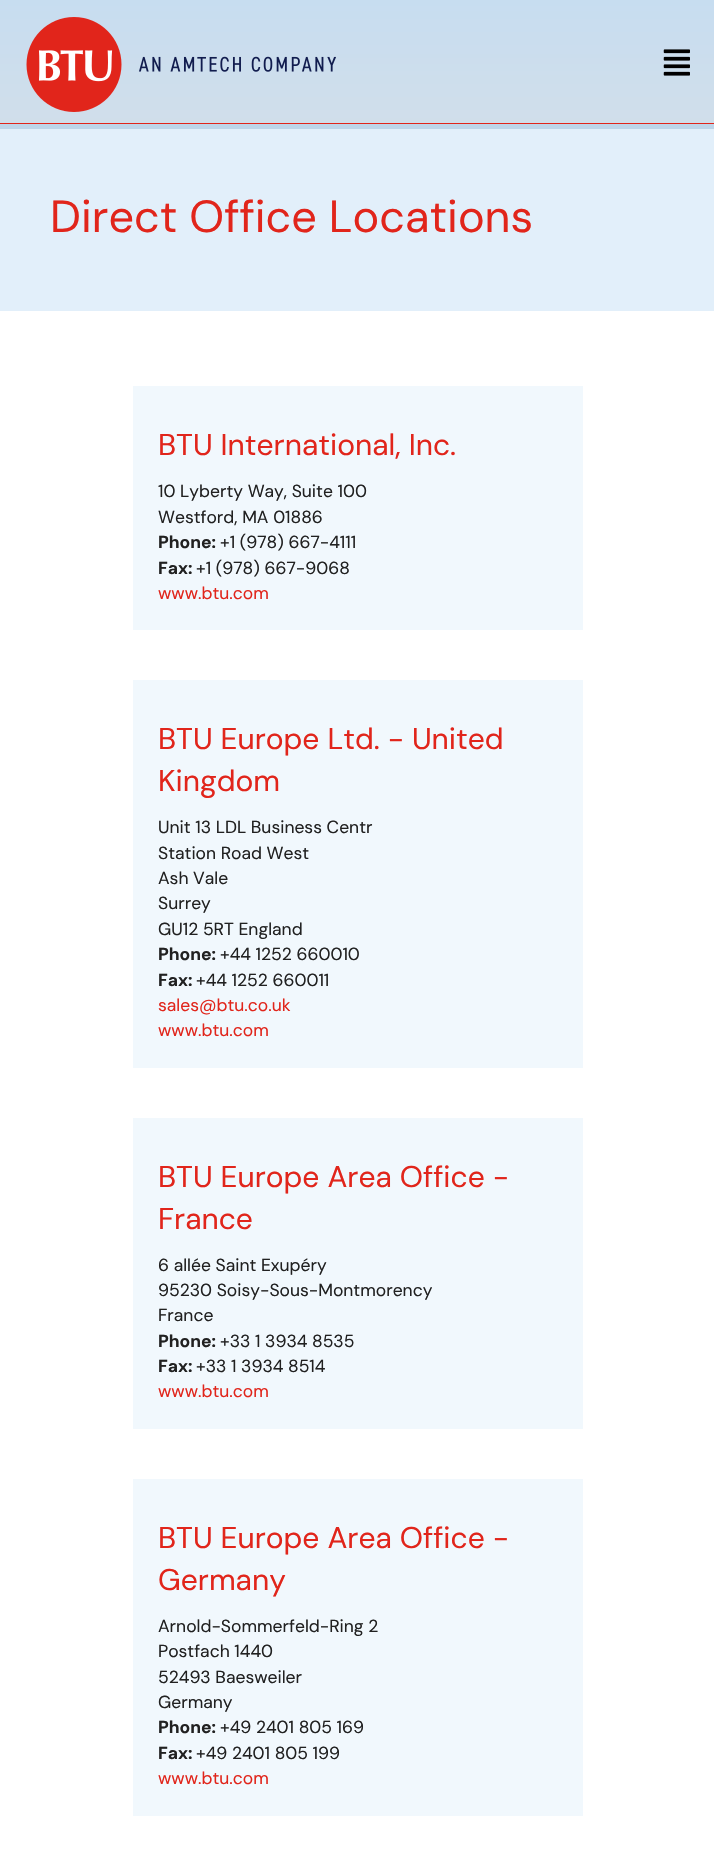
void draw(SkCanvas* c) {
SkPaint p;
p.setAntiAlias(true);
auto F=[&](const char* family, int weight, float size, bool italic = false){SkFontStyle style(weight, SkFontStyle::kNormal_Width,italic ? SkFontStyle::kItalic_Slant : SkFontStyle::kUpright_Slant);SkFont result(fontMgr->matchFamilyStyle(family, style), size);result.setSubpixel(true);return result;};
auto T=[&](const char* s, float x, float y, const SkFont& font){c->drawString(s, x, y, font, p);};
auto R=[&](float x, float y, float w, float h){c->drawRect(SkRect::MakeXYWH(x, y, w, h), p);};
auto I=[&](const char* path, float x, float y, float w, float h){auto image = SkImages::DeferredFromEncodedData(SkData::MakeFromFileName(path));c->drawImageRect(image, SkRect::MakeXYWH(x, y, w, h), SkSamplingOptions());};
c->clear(0xffffffff);
{
const SkColor colors[] = {0xffc7ddf0,0xffd1deea};
const float stops[] = {0,1};
const SkPoint ends[] = {{358,0}, {358,129}};
p.setShader(SkGradientShader::MakeLinear(ends, colors, stops, 2, SkTileMode::kClamp));
p.setAlpha(255);
}
R(0,0,714,123);
{
const SkColor colors[] = {0xffb5d4ee,0xffbdd5e9};
const float stops[] = {0,1};
const SkPoint ends[] = {{358,0}, {358,129}};
p.setShader(SkGradientShader::MakeLinear(ends, colors, stops, 2, SkTileMode::kClamp));
p.setAlpha(255);
}
R(0,124,714,5);
I("1.png",26,17,310,95);
I("2.png",663,49,27,27);
p.setShader(nullptr);
p.setColor(0xffe1251b);
R(0,123,714,1);
p.setColor(0xffe2effa);
R(0,129,714,182);
auto f1 = F("DM Sans",400,45);
p.setColor(0xffe1251b);
T("Direct Office Locations",50,232,f1);
p.setColor(0xfff1f8fd);
R(133,386,450,244);
auto f2 = F("DM Sans",400,30);
p.setColor(0xffe1251b);
T("BTU International, Inc.",158,455,f2);
auto f3 = F("DM Sans",400,17.5);
p.setColor(0xff212121);
T("10 Lyberty Way, Suite 100",158,497,f3);
T("Westford, MA 01886",158,523,f3);
auto f4 = F("DM Sans",700,17.5);
T("Phone:",158,548,f4);
T("+1 (978) 667-4111",220,548,f3);
T("Fax:",158,574,f4);
T("+1 (978) 667-9068",196,574,f3);
p.setColor(0xffe1251b);
T("www.btu.com",158,599,f3);
p.setColor(0xfff1f8fd);
R(133,680,450,388);
p.setColor(0xffe1251b);
T("BTU Europe Ltd. - United",158,749,f2);
T("Kingdom",158,791,f2);
p.setColor(0xff212121);
T("Unit 13 LDL Business Centr",158,833,f3);
T("Station Road West",158,859,f3);
T("Ash Vale",158,884,f3);
T("Surrey",158,909,f3);
T("GU12 5RT England",158,935,f3);
T("Phone:",158,960,f4);
T("+44 1252 660010",220,960,f3);
T("Fax:",158,986,f4);
T("+44 1252 660011",196,986,f3);
p.setColor(0xffe1251b);
T("sales@btu.co.uk",158,1011,f3);
T("www.btu.com",158,1036,f3);
p.setColor(0xfff1f8fd);
R(133,1118,450,311);
p.setColor(0xffe1251b);
T("BTU Europe Area Office -",158,1187,f2);
T("France",158,1229,f2);
p.setColor(0xff212121);
T("6 allée Saint Exupéry",158,1271,f3);
T("95230 Soisy-Sous-Montmorency",158,1296,f3);
T("France",158,1321,f3);
T("Phone:",158,1347,f4);
T("+33 1 3934 8535",220,1347,f3);
T("Fax:",158,1372,f4);
T("+33 1 3934 8514",196,1372,f3);
p.setColor(0xffe1251b);
T("www.btu.com",158,1397,f3);
p.setColor(0xfff1f8fd);
R(133,1479,450,337);
p.setColor(0xffe1251b);
T("BTU Europe Area Office -",158,1548,f2);
T("Germany",158,1590,f2);
p.setColor(0xff212121);
T("Arnold-Sommerfeld-Ring 2",158,1632,f3);
T("Postfach 1440",158,1657,f3);
T("52493 Baesweiler",158,1683,f3);
T("Germany",158,1708,f3);
T("Phone:",158,1733,f4);
T("+49 2401 805 169",220,1733,f3);
T("Fax:",158,1759,f4);
T("+49 2401 805 199",196,1759,f3);
p.setColor(0xffe1251b);
T("www.btu.com",158,1784,f3);
}
